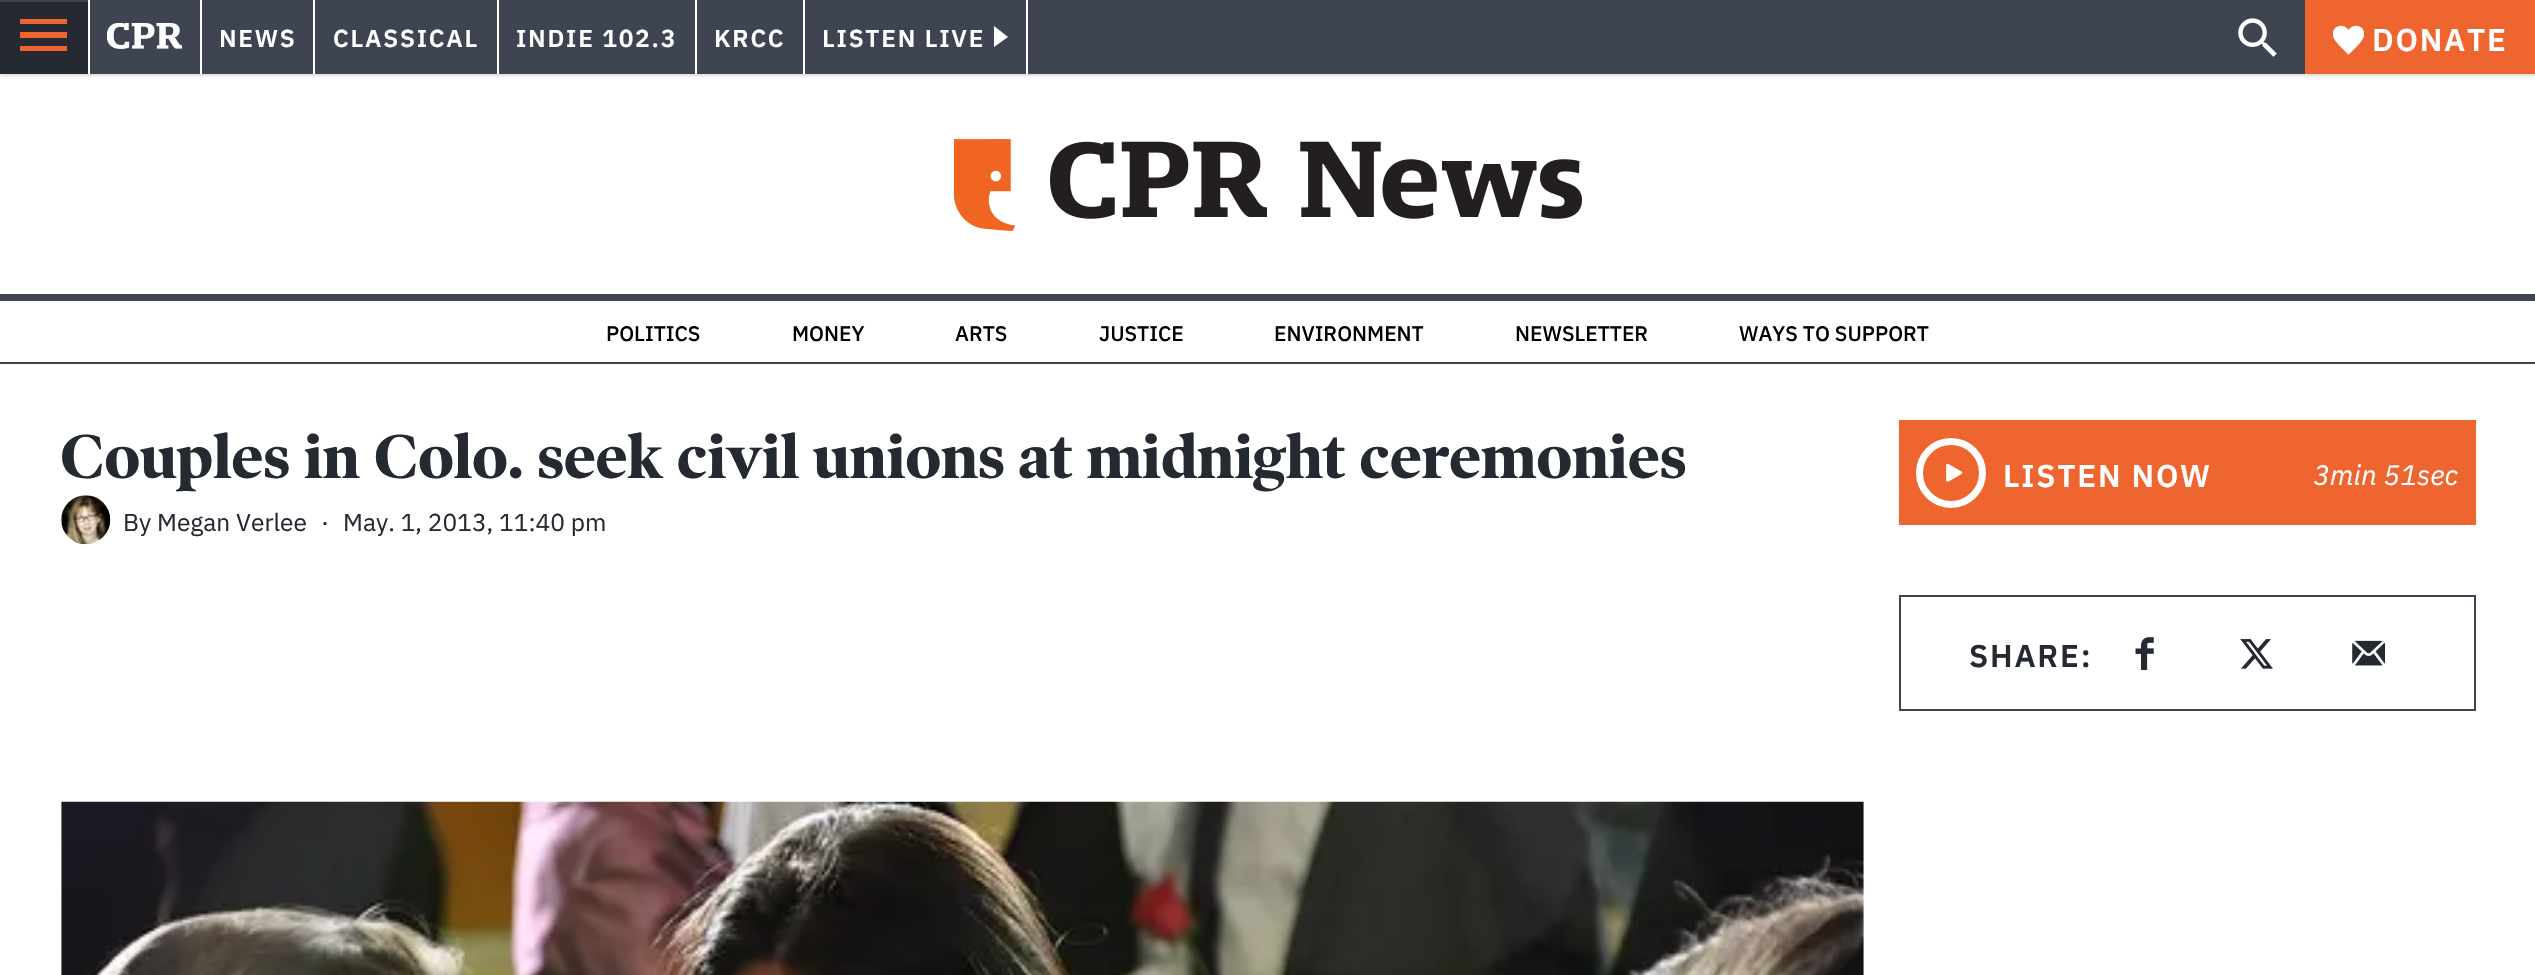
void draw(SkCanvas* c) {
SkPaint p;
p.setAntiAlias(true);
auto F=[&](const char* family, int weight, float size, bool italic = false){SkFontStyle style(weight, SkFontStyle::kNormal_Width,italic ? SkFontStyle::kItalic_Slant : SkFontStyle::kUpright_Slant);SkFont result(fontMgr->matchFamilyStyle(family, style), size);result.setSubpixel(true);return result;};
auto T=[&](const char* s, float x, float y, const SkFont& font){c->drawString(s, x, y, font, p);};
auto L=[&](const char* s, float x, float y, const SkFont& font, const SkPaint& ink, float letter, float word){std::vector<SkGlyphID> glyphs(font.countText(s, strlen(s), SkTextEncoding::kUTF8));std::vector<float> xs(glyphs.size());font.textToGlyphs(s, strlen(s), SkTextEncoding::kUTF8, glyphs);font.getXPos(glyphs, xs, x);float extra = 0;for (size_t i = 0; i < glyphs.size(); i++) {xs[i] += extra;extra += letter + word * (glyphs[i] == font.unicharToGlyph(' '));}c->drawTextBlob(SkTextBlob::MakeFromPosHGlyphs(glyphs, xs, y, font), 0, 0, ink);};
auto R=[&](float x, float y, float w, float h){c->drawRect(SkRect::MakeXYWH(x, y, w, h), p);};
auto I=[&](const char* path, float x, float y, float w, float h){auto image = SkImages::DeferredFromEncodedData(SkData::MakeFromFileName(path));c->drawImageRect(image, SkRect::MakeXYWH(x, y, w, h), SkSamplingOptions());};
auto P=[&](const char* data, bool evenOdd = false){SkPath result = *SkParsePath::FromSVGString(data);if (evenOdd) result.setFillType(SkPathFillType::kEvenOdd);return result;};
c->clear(0xffffffff);
p.setColor(0x33000000);
p.setMaskFilter(SkMaskFilter::MakeBlur(kNormal_SkBlurStyle, 2));
c->drawRect(SkRect::MakeXYWH(0,2,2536,73),p);
p.setMaskFilter(nullptr);
p.setColor(0xff3e4451);
R(0,0,2305,74);
p.setColor(0xff252931);
R(0,2,88,72);
p.setColor(0xffef6530);
c->drawPath(P("M20 51h47v-5h-47zm0-13h47v-6h-47zm0-19v5h47v-5z"),p);
p.setColor(0xffffffff);
R(200,0,2,74);
R(88,0,2,74);
I("1.png",107,23,75,26);
R(313,0,2,74);
auto f1 = F("IBM Plex Sans",600,24.5);
L("NEWS",219,47,f1,p,1.75,0);
R(497,0,2,74);
L("CLASSICAL",333,47,f1,p,1.75,0);
R(695,0,2,74);
L("INDIE 102.3",516,47,f1,p,1.75,0);
R(803,0,2,74);
L("KRCC",714,47,f1,p,1.75,0);
R(1026,0,2,74);
L("LISTEN LIVE",822,47,f1,p,1.75,0);
c->drawPath(P("M994 47v-21l14 11z"),p);
I("2.png",2238,18,39,39);
p.setColor(0xffef6530);
R(2305,0,230,74);
I("3.png",2333,25,31,30);
auto f2 = F("IBM Plex Sans",600,31.5);
p.setColor(0xffffffff);
L("DONATE",2372,51,f2,p,1.75,0);
p.setColor(0xff3e4451);
R(0,294,2535,7);
I("4.png",954,139,628,92);
R(0,362,2535,2);
auto f3 = F("IBM Plex Sans",500,21);
p.setColor(0xff000000);
T("POLITICS",606,341,f3);
T("MONEY",792,341,f3);
T("ARTS",955,341,f3);
T("JUSTICE",1099,341,f3);
T("ENVIRONMENT",1274,341,f3);
T("NEWSLETTER",1515,341,f3);
T("WAYS TO SUPPORT",1739,341,f3);
auto f4 = F("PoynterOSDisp",700,63);
p.setColor(0xff252931);
T("Couples in Colo. seek civil unions at midnight ceremonies",60,478,f4);
I("5.png",61,495,50,50);
auto f5 = F("IBM Plex Sans",400,24.5);
T("By Megan Verlee",123,531,f5);
T("·",321,531,f5);
T("May. 1, 2013, 11:40 pm",343,531,f5);
p.setColor(0xffef6530);
R(1899,420,577,105);
p.setStroke(true);
p.setStrokeWidth(7);
p.setColor(0xffffffff);
c->drawCircle(1951,473,31.5,p);
I("6.png",1946,463,17,19);
p.setStroke(false);
L("LISTEN NOW",2003,487,f2,p,1.75,0);
auto f6 = F("IBM Plex Sans",400,28,true);
T("3min 51sec",2313,485,f6);
p.setStroke(true);
p.setStrokeWidth(2);
p.setColor(0xff3e4451);
c->drawRect(SkRect::MakeXYWH(1900,596,575,114),p);
p.setStroke(false);
p.setColor(0xff252931);
L("SHARE:",1969,667,f2,p,1.75,0);
I("7.png",2135,637,19,33);
I("8.png",2240,639,33,30);
I("9.png",2352,640,34,26);
I("10.png",61,801,1803,174);
}
